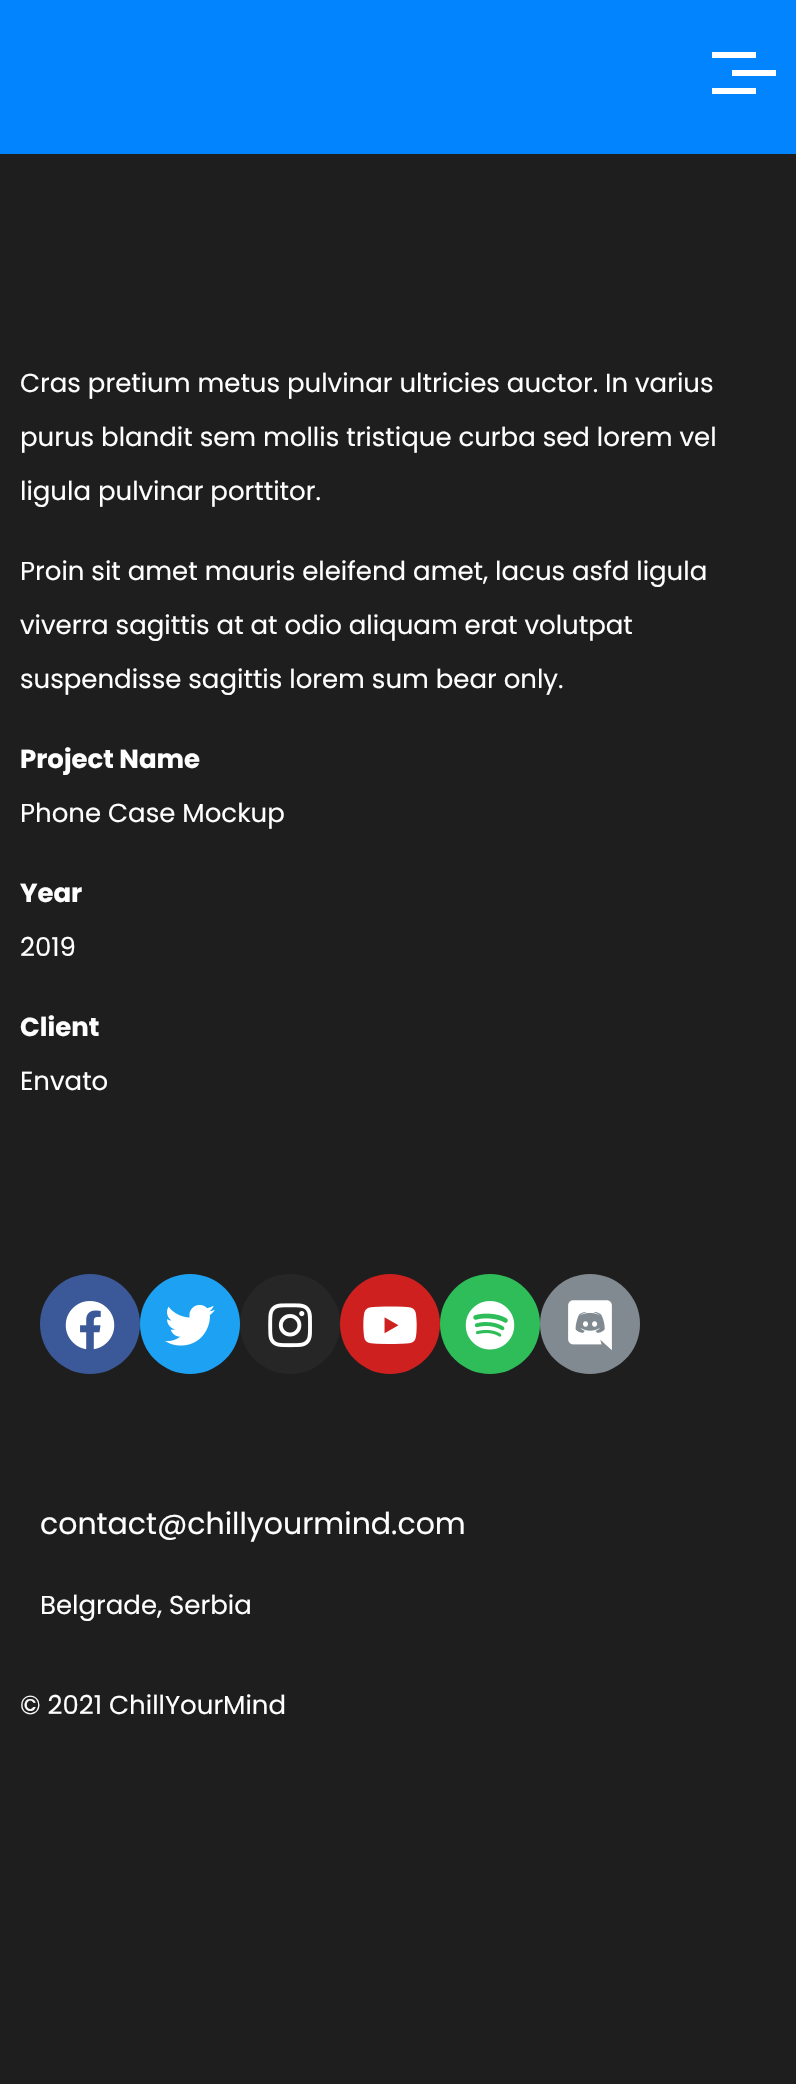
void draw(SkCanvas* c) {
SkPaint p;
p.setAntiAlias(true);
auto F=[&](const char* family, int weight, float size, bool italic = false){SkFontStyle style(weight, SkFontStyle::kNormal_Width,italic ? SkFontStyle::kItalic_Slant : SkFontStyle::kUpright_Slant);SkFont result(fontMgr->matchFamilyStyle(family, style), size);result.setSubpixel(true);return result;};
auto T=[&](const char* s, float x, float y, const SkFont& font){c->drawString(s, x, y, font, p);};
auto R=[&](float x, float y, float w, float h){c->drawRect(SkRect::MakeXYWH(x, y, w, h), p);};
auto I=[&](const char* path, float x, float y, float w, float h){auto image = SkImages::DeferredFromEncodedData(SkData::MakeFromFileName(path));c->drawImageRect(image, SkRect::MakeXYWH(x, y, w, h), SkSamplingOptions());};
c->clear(0xff1e1e1e);
p.setColor(0xff0284fe);
R(0,0,796,154);
p.setColor(0xffffffff);
R(712,52,44,6);
R(732,70,44,6);
R(712,88,44,6);
auto f1 = F("Poppins",400,26);
T("Cras pretium metus pulvinar ultricies auctor. In varius",20,392,f1);
T("purus blandit sem mollis tristique curba sed lorem vel",20,446,f1);
T("ligula pulvinar porttitor.",20,500,f1);
T("Proin sit amet mauris eleifend amet, lacus asfd ligula",20,580,f1);
T("viverra sagittis at at odio aliquam erat volutpat",20,634,f1);
T("suspendisse sagittis lorem sum bear only.",20,688,f1);
auto f2 = F("Poppins",700,26);
T("Project Name",20,768,f2);
T("Phone Case Mockup",20,822,f1);
T("Year",20,902,f2);
T("2019",20,956,f1);
T("Client",20,1036,f2);
T("Envato",20,1090,f1);
p.setColor(0xff3b5998);
c->drawCircle(90,1324,50,p);
I("1.png",65,1301,50,49);
p.setColor(0xff1da1f2);
c->drawCircle(190,1324,50,p);
I("2.png",165,1304,50,42);
p.setColor(0xff262626);
c->drawCircle(290,1324,50,p);
I("3.png",268,1303,44,45);
p.setColor(0xffcd201f);
c->drawCircle(390,1324,50,p);
I("4.png",363,1306,54,38);
p.setColor(0xff2ebd59);
c->drawCircle(490,1324,50,p);
I("5.png",465,1301,50,49);
p.setColor(0xff818a91);
c->drawCircle(590,1324,50,p);
I("6.png",568,1300,44,51);
auto f3 = F("Poppins",400,30);
p.setColor(0xffffffff);
T("contact@chillyourmind.com",40,1534,f3);
T("Belgrade, Serbia",40,1614,f1);
T("© 2021 ChillYourMind",20,1714,f1);
}
